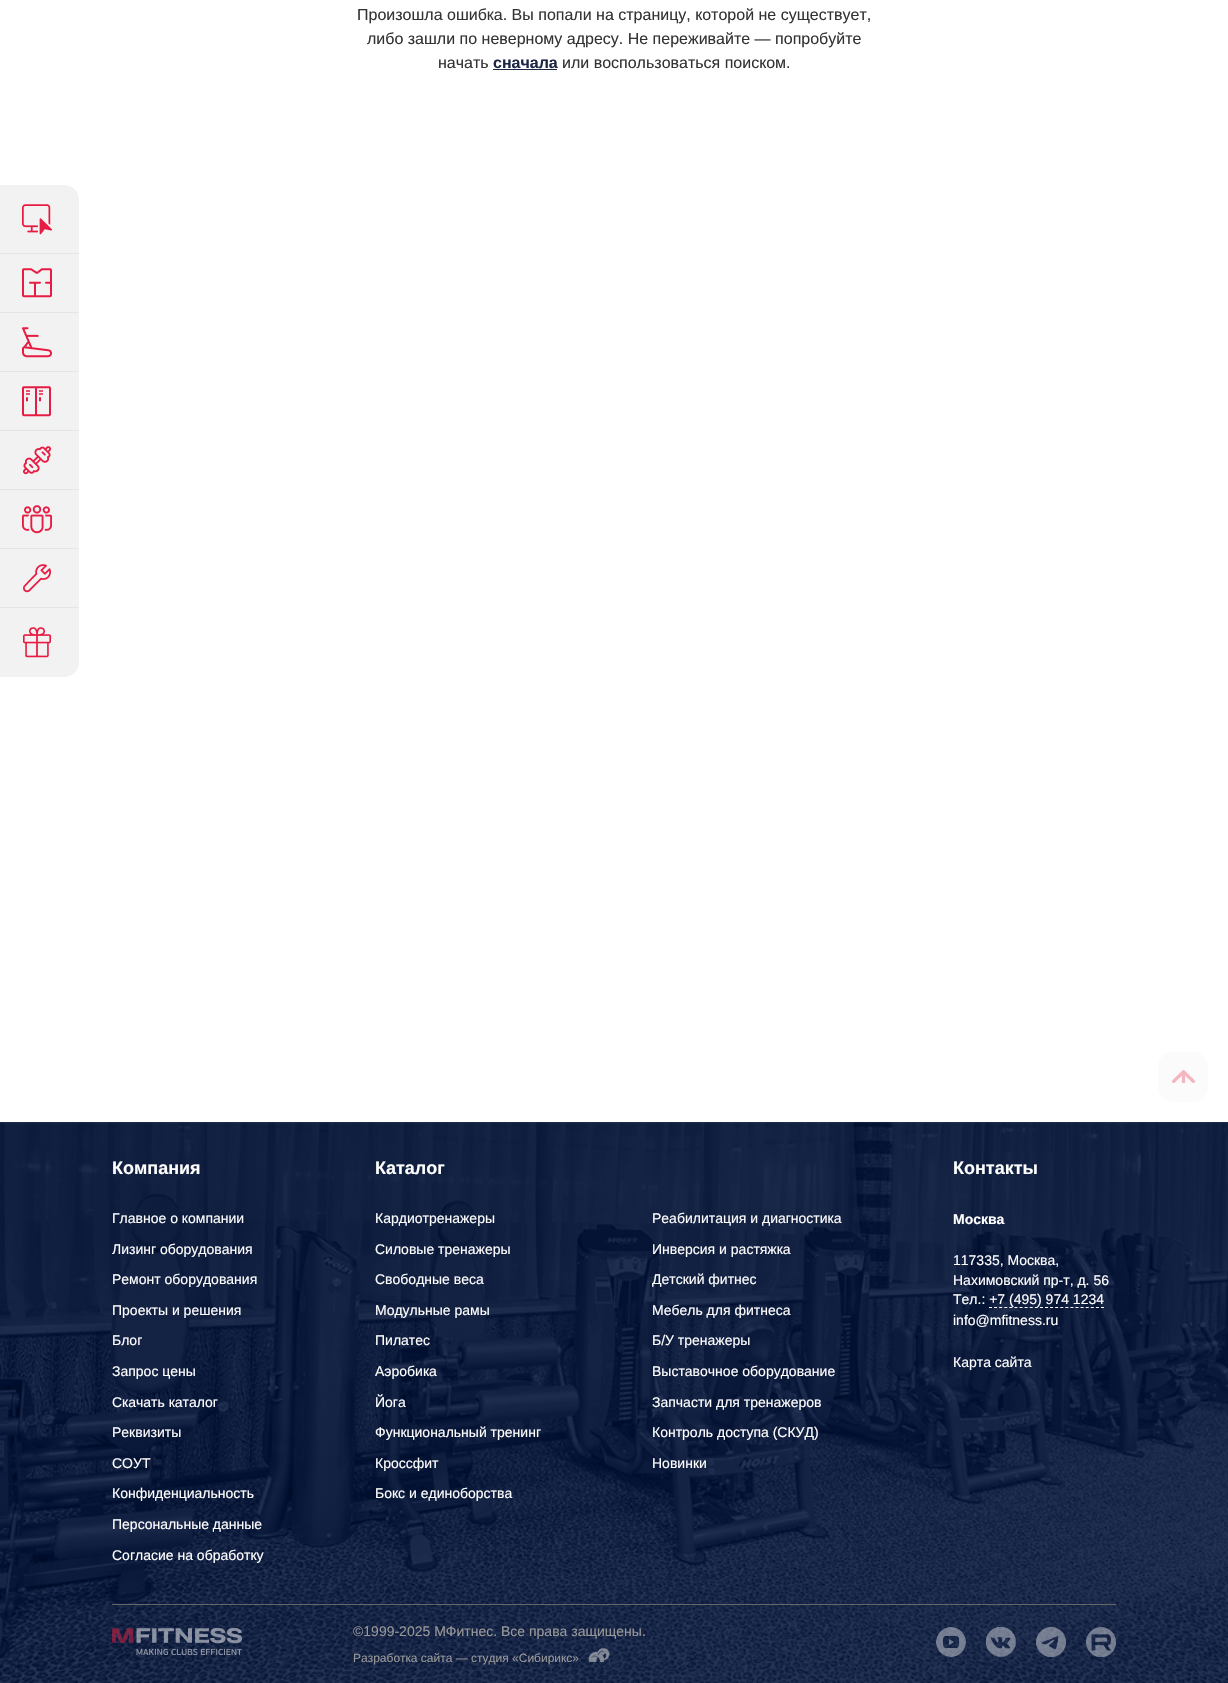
void draw(SkCanvas* c) {
SkPaint p;
p.setAntiAlias(true);
auto F=[&](const char* family, int weight, float size, bool italic = false){SkFontStyle style(weight, SkFontStyle::kNormal_Width,italic ? SkFontStyle::kItalic_Slant : SkFontStyle::kUpright_Slant);SkFont result(fontMgr->matchFamilyStyle(family, style), size);result.setSubpixel(true);return result;};
auto T=[&](const char* s, float x, float y, const SkFont& font){c->drawString(s, x, y, font, p);};
auto R=[&](float x, float y, float w, float h){c->drawRect(SkRect::MakeXYWH(x, y, w, h), p);};
auto Q=[&](float x, float y, float w, float h, float radius){c->drawRoundRect(SkRect::MakeXYWH(x, y, w, h), radius, radius, p);};
auto I=[&](const char* path, float x, float y, float w, float h){auto image = SkImages::DeferredFromEncodedData(SkData::MakeFromFileName(path));c->drawImageRect(image, SkRect::MakeXYWH(x, y, w, h), SkSamplingOptions());};
auto P=[&](const char* data, bool evenOdd = false){SkPath result = *SkParsePath::FromSVGString(data);if (evenOdd) result.setFillType(SkPathFillType::kEvenOdd);return result;};
c->clear(0xffffffff);
auto f1 = F("Liberation Sans",400,16);
p.setColor(0xff333333);
T("Произошла ошибка. Вы попали на страницу, которой не существует,",357,20,f1);
T("либо зашли по неверному адресу. Не переживайте — попробуйте",367,44,f1);
T("начать",438,68,f1);
auto f2 = F("Liberation Sans",700,16);
p.setColor(0xff1b2745);
T("сначала",493,68,f2);
R(493,69,64,1);
p.setColor(0xff333333);
T("или воспользоваться поиском.",562,68,f1);
p.setColor(0xfff2f2f2);
c->drawPath(P("M0 185h64c8.5 0 15 6.5 15 15v54h-79z"),p);
p.setColor(0xffe5e5e5);
R(0,253,79,1);
I("1.png",22,204,30,31);
p.setColor(0xfff2f2f2);
R(0,254,79,58);
p.setColor(0xffe5e5e5);
R(0,312,79,1);
I("2.png",22,268,30,30);
p.setColor(0xfff2f2f2);
R(0,313,79,58);
p.setColor(0xffe5e5e5);
R(0,371,79,1);
I("3.png",22,327,30,31);
p.setColor(0xfff2f2f2);
R(0,372,79,58);
p.setColor(0xffe5e5e5);
R(0,430,79,1);
I("4.png",22,386,29,31);
p.setColor(0xfff2f2f2);
R(0,431,79,58);
p.setColor(0xffe5e5e5);
R(0,489,79,1);
I("5.png",23,446,28,29);
p.setColor(0xfff2f2f2);
R(0,490,79,58);
p.setColor(0xffe5e5e5);
R(0,548,79,1);
I("6.png",22,505,30,29);
p.setColor(0xfff2f2f2);
R(0,549,79,58);
p.setColor(0xffe5e5e5);
R(0,607,79,1);
I("7.png",23,564,28,29);
p.setColor(0xfff2f2f2);
c->drawPath(P("M0 608h79v54c0 8.5-6.5 15-15 15h-64z"),p);
I("8.png",23,627,28,31);
I("9.png",0,1122,1228,561);
p.setColor(0xfffbfbfb);
Q(1158,1052,50,50,15);
I("10.png",1172,1070,23,13);
auto f3 = F("Liberation Sans",700,18);
p.setColor(0xffffffff);
T("Компания",112,1174,f3);
auto f4 = F("Liberation Sans",400,14);
T("Главное о компании",112,1223,f4);
T("Лизинг оборудования",112,1254,f4);
T("Ремонт оборудования",112,1284,f4);
T("Проекты и решения",112,1315,f4);
T("Блог",112,1345,f4);
T("Запрос цены",112,1376,f4);
T("Скачать каталог",112,1407,f4);
T("Реквизиты",112,1437,f4);
T("СОУТ",112,1468,f4);
T("Конфиденциальность",112,1498,f4);
T("Персональные данные",112,1529,f4);
T("Согласие на обработку",112,1560,f4);
T("Каталог",375,1174,f3);
T("Кардиотренажеры",375,1223,f4);
T("Силовые тренажеры",375,1254,f4);
T("Свободные веса",375,1284,f4);
T("Модульные рамы",375,1315,f4);
T("Пилатес",375,1345,f4);
T("Аэробика",375,1376,f4);
T("Йога",375,1407,f4);
T("Функциональный тренинг",375,1437,f4);
T("Кроссфит",375,1468,f4);
T("Бокс и единоборства",375,1498,f4);
T("Реабилитация и диагностика",652,1223,f4);
T("Инверсия и растяжка",652,1254,f4);
T("Детский фитнес",652,1284,f4);
T("Мебель для фитнеса",652,1315,f4);
T("Б/У тренажеры",652,1345,f4);
T("Выставочное оборудование",652,1376,f4);
T("Запчасти для тренажеров",652,1407,f4);
T("Контроль доступа (СКУД)",652,1437,f4);
T("Новинки",652,1468,f4);
T("Контакты",953,1174,f3);
auto f5 = F("Liberation Sans",700,14);
T("Москва",953,1224,f5);
T("117335, Москва,",953,1265,f4);
T("Нахимовский пр-т, д. 56",953,1285,f4);
T("Тел.: +7 (495) 974 1234",953,1304,f4);
p.setStroke(true);
p.setStrokeWidth(1);
p.setPathEffect(SkDashPathEffect::Make({{3,2.09f}}, 0));
c->drawPath(P("M989 1307.5h115"),p);
p.setPathEffect(nullptr);
p.setStroke(false);
T("info@mfitness.ru",953,1325,f4);
T("Карта сайта",953,1367,f4);
p.setColor(0xff666666);
R(112,1604,1004,1);
I("11.png",112,1628,130,27);
p.setColor(0xff999999);
T("©1999-2025 МФитнес. Все права защищены.",353,1636,f4);
auto f6 = F("Liberation Sans",400,12);
T("Разработка сайта — студия «Сибирикс»",353,1662,f6);
I("12.png",588,1647,22,15);
I("13.png",936,1627,30,30);
I("14.png",986,1627,30,30);
I("15.png",1036,1627,30,30);
I("16.png",1086,1627,30,30);
}
